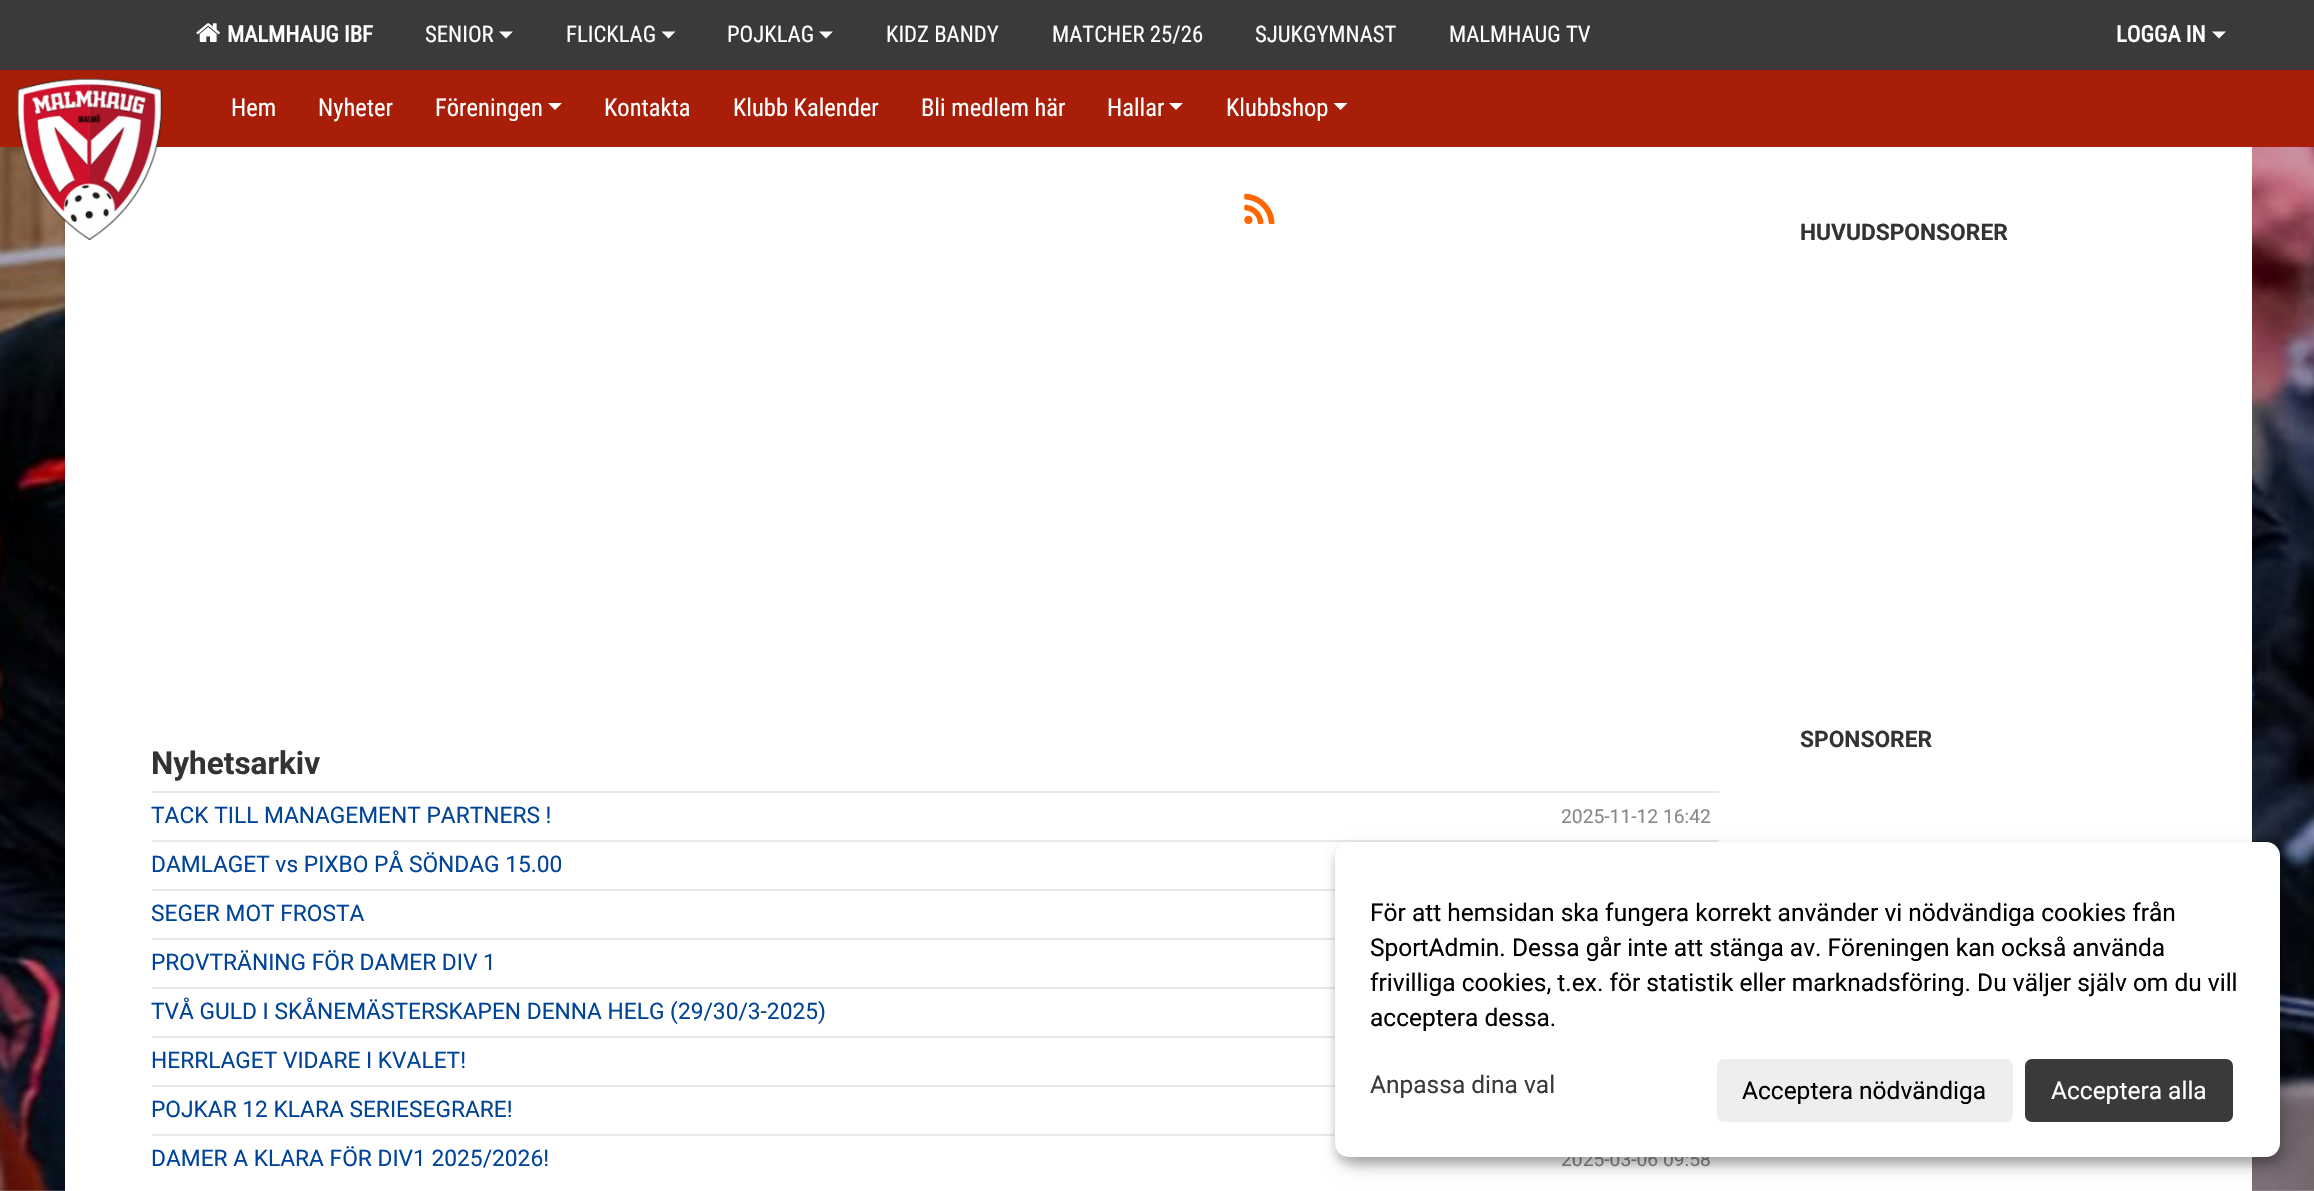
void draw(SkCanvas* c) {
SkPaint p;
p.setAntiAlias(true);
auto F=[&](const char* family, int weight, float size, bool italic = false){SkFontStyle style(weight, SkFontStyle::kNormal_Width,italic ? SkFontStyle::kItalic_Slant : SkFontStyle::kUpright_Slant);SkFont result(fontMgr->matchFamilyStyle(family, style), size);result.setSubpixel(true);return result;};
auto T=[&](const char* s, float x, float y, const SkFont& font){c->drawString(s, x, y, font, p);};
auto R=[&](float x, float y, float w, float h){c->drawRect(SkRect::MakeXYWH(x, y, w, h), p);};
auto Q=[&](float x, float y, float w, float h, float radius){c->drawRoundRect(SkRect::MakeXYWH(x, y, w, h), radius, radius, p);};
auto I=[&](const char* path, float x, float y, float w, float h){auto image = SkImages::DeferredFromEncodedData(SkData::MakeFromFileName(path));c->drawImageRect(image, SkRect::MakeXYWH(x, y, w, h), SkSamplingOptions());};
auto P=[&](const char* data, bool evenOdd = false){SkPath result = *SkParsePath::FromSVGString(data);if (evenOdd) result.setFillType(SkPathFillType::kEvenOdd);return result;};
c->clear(0xffffffff);
I("1.png",0,147,2314,1044);
p.setColor(0xff3b3a38);
R(0,0,2314,70);
I("2.png",196,23,24,19);
auto f1 = F("Roboto Condensed",700,22.75);
p.setColor(0xffffffff);
T("MALMHAUG IBF",227,42,f1);
auto f2 = F("Roboto Condensed",400,22.75);
T("SENIOR",425,42,f2);
c->drawPath(P("M499 31.5h14l-7 7z"),p);
T("FLICKLAG",566,42,f2);
c->drawPath(P("M661.5 31.5h14l-7 7z"),p);
T("POJKLAG",727,42,f2);
c->drawPath(P("M819 31.5h14l-7 7z"),p);
T("KIDZ BANDY",886,42,f2);
T("MATCHER 25/26",1052,42,f2);
T("SJUKGYMNAST",1255,42,f2);
T("MALMHAUG TV",1449,42,f2);
T("LOGGA IN",2116,42,f1);
c->drawPath(P("M2212 31.5h14l-7 7z"),p);
R(65,147,2187,1044);
p.setColor(0xffa81e08);
R(0,70,2314,77);
I("3.png",17,78,146,162);
auto f3 = F("Roboto Condensed",400,24.5);
p.setColor(0xffffffff);
T("Hem",231,116,f3);
T("Nyheter",318,116,f3);
T("Föreningen",435,116,f3);
c->drawPath(P("M548 103h14l-7 7z"),p);
T("Kontakta",604,116,f3);
T("Klubb Kalender",733,116,f3);
T("Bli medlem här",921,116,f3);
T("Hallar",1107,116,f3);
c->drawPath(P("M1169 103h14l-7 7z"),p);
T("Klubbshop",1226,116,f3);
c->drawPath(P("M1333.5 103h14l-7 7z"),p);
auto f4 = F("Roboto",700,22.75);
p.setColor(0xff333333);
T("HUVUDSPONSORER",1800,240,f4);
T("SPONSORER",1800,747,f4);
I("4.png",1244,193,31,31);
auto f5 = F("Roboto",700,31.5);
T("Nyhetsarkiv",151,774,f5);
p.setColor(0xffe8e8e8);
R(152,791,1567,2);
auto f6 = F("Roboto",400,22.75);
p.setColor(0xff004499);
T("TACK TILL MANAGEMENT PARTNERS !",151,823,f6);
auto f7 = F("Roboto",400,19.25);
p.setColor(0xff888888);
T("2025-11-12 16:42",1561,823,f7);
p.setColor(0xffe8e8e8);
R(152,840,1567,2);
p.setColor(0xff004499);
T("DAMLAGET vs PIXBO PÅ SÖNDAG 15.00",151,872,f6);
p.setColor(0xffe8e8e8);
R(152,889,1183,2);
p.setColor(0xff004499);
T("SEGER MOT FROSTA",151,921,f6);
p.setColor(0xffe8e8e8);
R(152,938,1183,2);
p.setColor(0xff004499);
T("PROVTRÄNING FÖR DAMER DIV 1",151,970,f6);
p.setColor(0xffe8e8e8);
R(152,987,1183,2);
p.setColor(0xff004499);
T("TVÅ GULD I SKÅNEMÄSTERSKAPEN DENNA HELG (29/30/3-2025)",151,1019,f6);
p.setColor(0xffe8e8e8);
R(152,1036,1183,2);
p.setColor(0xff004499);
T("HERRLAGET VIDARE I KVALET!",151,1068,f6);
p.setColor(0xffe8e8e8);
R(152,1085,1183,2);
p.setColor(0xff004499);
T("POJKAR 12 KLARA SERIESEGRARE!",151,1117,f6);
p.setColor(0xffe8e8e8);
R(152,1134,1183,2);
p.setColor(0xff004499);
T("DAMER A KLARA FÖR DIV1 2025/2026!",151,1166,f6);
p.setColor(0xff888888);
T("2025-03-06 09:58",1561,1166,f7);
p.setColor(0x30000000);
p.setMaskFilter(SkMaskFilter::MakeBlur(kNormal_SkBlurStyle, 9));
c->drawRoundRect(SkRect::MakeXYWH(1344,851,945,315),14,14,p);
p.setMaskFilter(nullptr);
p.setColor(0x33000000);
p.setMaskFilter(SkMaskFilter::MakeBlur(kNormal_SkBlurStyle, 5));
c->drawRoundRect(SkRect::MakeXYWH(1335,849,945,315),14,14,p);
p.setMaskFilter(nullptr);
p.setColor(0xffffffff);
Q(1335,842,945,315,14);
auto f8 = F("Roboto",400,24.5);
p.setColor(0xff000000);
T("För att hemsidan ska fungera korrekt använder vi nödvändiga cookies från",1370,921,f8);
T("SportAdmin. Dessa går inte att stänga av. Föreningen kan också använda",1370,956,f8);
T("frivilliga cookies, t.ex. för statistik eller marknadsföring. Du väljer själv om du vill",1370,991,f8);
T("acceptera dessa.",1370,1026,f8);
p.setColor(0xff3b3a38);
T("Anpassa dina val",1370,1093,f8);
p.setColor(0xffeeeeee);
Q(1717,1059,296,63,7);
p.setColor(0xff000000);
T("Acceptera nödvändiga",1742,1099,f8);
p.setColor(0xff3b3a38);
Q(2025,1059,208,63,7);
p.setColor(0xffffffff);
T("Acceptera alla",2051,1099,f8);
}
